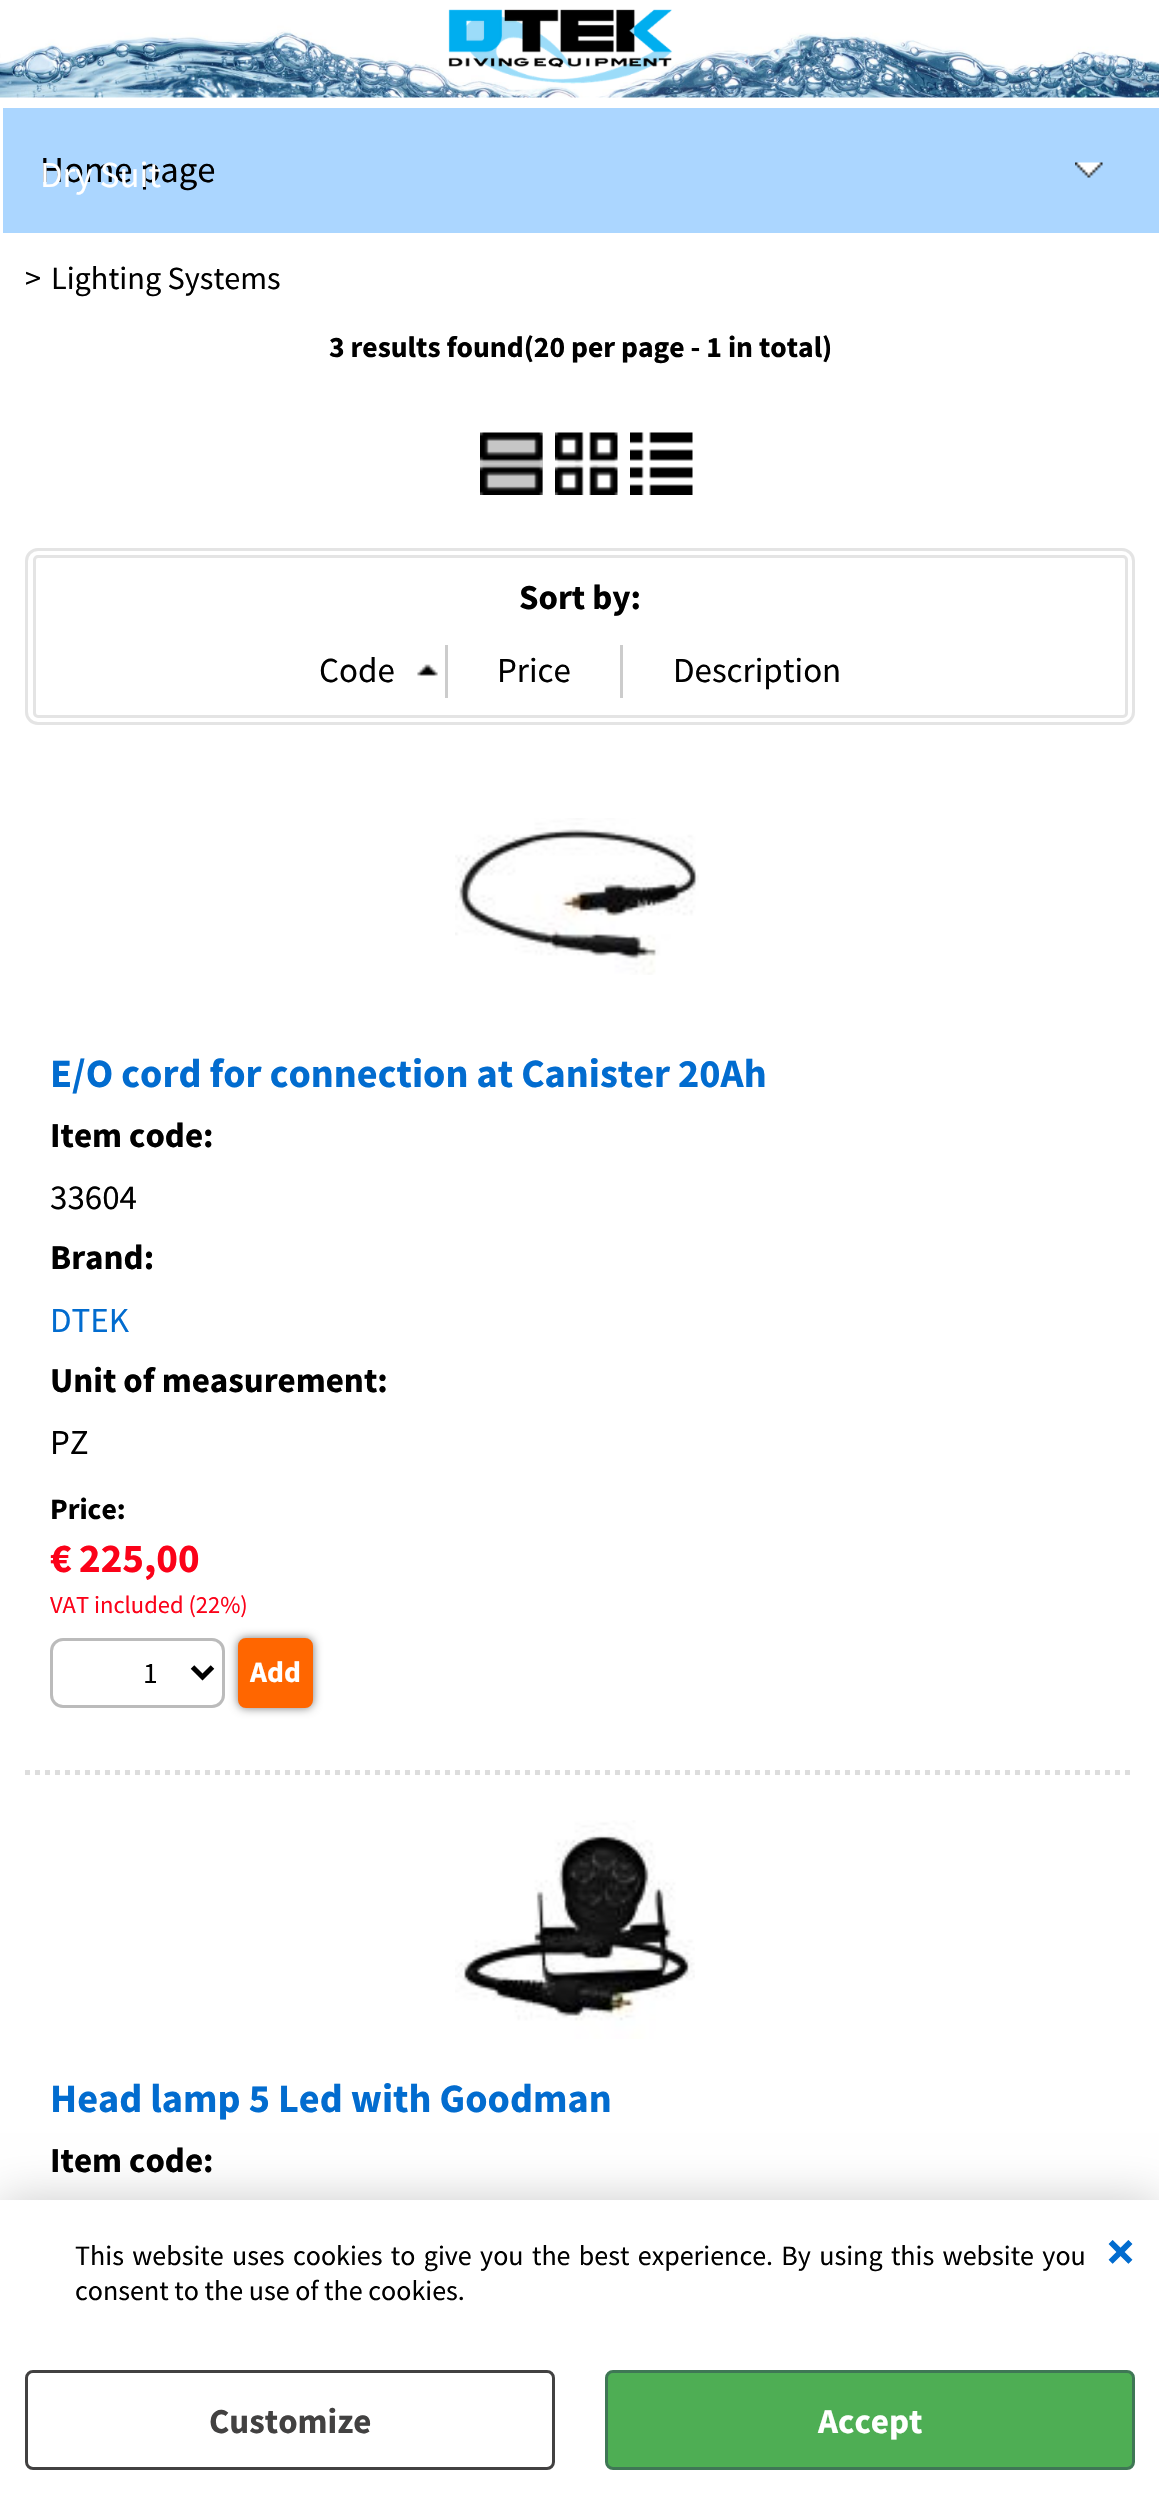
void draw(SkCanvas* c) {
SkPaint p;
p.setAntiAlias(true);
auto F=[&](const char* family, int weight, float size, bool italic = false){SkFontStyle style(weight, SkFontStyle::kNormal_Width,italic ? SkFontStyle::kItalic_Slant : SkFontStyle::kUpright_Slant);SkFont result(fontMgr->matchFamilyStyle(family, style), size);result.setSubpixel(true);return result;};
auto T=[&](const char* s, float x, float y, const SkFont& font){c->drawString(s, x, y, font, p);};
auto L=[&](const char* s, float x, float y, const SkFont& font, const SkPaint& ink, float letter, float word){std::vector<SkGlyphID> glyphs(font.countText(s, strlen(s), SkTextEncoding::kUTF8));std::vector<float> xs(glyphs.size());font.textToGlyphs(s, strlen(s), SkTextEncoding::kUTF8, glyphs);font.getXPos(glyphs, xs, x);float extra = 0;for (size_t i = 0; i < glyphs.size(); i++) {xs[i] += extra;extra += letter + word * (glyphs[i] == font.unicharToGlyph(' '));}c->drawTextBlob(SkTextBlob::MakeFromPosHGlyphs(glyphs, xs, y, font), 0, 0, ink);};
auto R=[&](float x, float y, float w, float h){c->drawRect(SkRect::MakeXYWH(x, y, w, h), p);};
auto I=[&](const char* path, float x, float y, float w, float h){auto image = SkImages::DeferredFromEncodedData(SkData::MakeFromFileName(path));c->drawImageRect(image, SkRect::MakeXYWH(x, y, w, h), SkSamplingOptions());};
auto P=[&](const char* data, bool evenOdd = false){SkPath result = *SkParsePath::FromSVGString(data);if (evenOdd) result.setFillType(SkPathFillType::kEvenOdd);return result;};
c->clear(0xffffffff);
I("1.png",0,9,1159,89);
p.setColor(0xffabd6ff);
R(3,108,1156,125);
I("2.png",1075,162,28,16);
auto f1 = F("Source Sans Pro",400,36.75);
p.setColor(0xff000000);
T("Home page",40,182,f1);
p.setColor(0xffffffff);
T("Dry Suit",40,187,f1);
auto f2 = F("Source Sans Pro",400,32.25);
p.setColor(0xff000000);
T(">",25,289,f2);
T("Lighting Systems",51,289,f2);
auto f3 = F("Source Sans Pro",700,29.6);
T("3 results found(20 per page - 1 in total)",329,357,f3);
p.setColor(0xffc6c6c6);
R(480,433,63,62);
I("3.png",480,432,63,63);
I("4.png",555,432,63,63);
I("5.png",630,432,63,63);
p.setStroke(true);
p.setStrokeWidth(3);
p.setColor(0xffe4e4e4);
c->drawRoundRect(SkRect::MakeXYWH(26.5,549.5,1107,174),11.5,11.5,p);
c->drawRoundRect(SkRect::MakeXYWH(34.5,556.5,1092,160),3.5,3.5,p);
auto f4 = F("Source Sans Pro",700,35);
p.setStroke(false);
p.setColor(0xff000000);
T("Sort by:",519,609,f4);
I("6.png",417,664,21,12);
p.setColor(0xffcccccc);
R(445,645,3,53);
auto f5 = F("Source Sans Pro",400,35);
p.setColor(0xff000000);
T("Code",319,682,f5);
p.setColor(0xffcccccc);
R(620,645,3,53);
p.setColor(0xff000000);
T("Price",497,682,f5);
T("Description",673,682,f5);
p.setStroke(true);
p.setStrokeWidth(5);
p.setColor(0xffdddddd);
p.setPathEffect(SkDashPathEffect::Make({{5,5}}, 0));
c->drawPath(P("M25 1772.5h1110"),p);
p.setPathEffect(nullptr);
I("7.png",455,818,244,157);
auto f6 = F("Source Sans Pro",700,40.25);
p.setStroke(false);
p.setColor(0xff026ccf);
T("E/O cord for connection at Canister 20Ah",50,1087,f6);
p.setColor(0xff000000);
T("Item code:",50,1147,f4);
T("33604",50,1209,f5);
T("Brand:",50,1269,f4);
p.setColor(0xff026ccf);
T("DTEK",50,1332,f5);
p.setColor(0xff000000);
T("Unit of measurement:",50,1392,f4);
T("PZ",50,1454,f5);
T("Price:",50,1519,f3);
auto f7 = F("Source Sans Pro",700,41);
p.setColor(0xfffb0219);
T("€",50,1572,f7);
T("225,00",79,1572,f7);
auto f8 = F("Source Sans Pro",400,24.5);
T("VAT included (22%)",50,1613,f8);
p.setStroke(true);
p.setStrokeWidth(3);
p.setColor(0xffbbbbbb);
c->drawRoundRect(SkRect::MakeXYWH(51.5,1639.5,172,67),11.5,11.5,p);
p.setStrokeWidth(5);
p.setColor(0xff000000);
c->drawPath(P("M192.5 1667l10 10l10-10"),p);
auto f9 = F("Source Sans Pro",400,29.6);
p.setStroke(false);
T("1",143,1683,f9);
p.setColor(0xff777777);
p.setMaskFilter(SkMaskFilter::MakeBlur(kNormal_SkBlurStyle, 5));
c->drawRoundRect(SkRect::MakeXYWH(238,1638,75,70),8,8,p);
p.setMaskFilter(nullptr);
p.setColor(0xffff6600);
c->drawRoundRect(SkRect::MakeXYWH(239.5,1639.5,72,67),6.5,6.5,p);
p.setStroke(true);
p.setStrokeWidth(3);
c->drawRoundRect(SkRect::MakeXYWH(239.5,1639.5,72,67),6.5,6.5,p);
p.setStroke(false);
p.setColor(0xffffffff);
T("Add",250,1682,f3);
I("8.png",455,1820,240,219);
p.setColor(0xff026ccf);
T("Head lamp 5 Led with Goodman",50,2112,f6);
p.setColor(0xff000000);
T("Item code:",50,2172,f4);
p.setColor(0x33000000);
p.setMaskFilter(SkMaskFilter::MakeBlur(kNormal_SkBlurStyle, 22.5));
c->drawRect(SkRect::MakeXYWH(0,2200,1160,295),p);
p.setMaskFilter(nullptr);
p.setColor(0xffffffff);
R(0,2200,1159,293);
auto f10 = F("Source Sans Pro",400,28);
p.setColor(0xff000000);
L("This website uses cookies to give you the best experience. By using this website you",75,2265,f10,p,0,2.75);
T("consent to the use of the cookies.",75,2300,f10);
auto f11 = F("Source Sans Pro",700,55);
p.setColor(0xff026ccf);
T("×",1106,2270,f11);
p.setStroke(true);
p.setColor(0xff424141);
c->drawRoundRect(SkRect::MakeXYWH(26.5,2371.5,527,97),6.5,6.5,p);
p.setStroke(false);
T("Customize",209,2433,f4);
p.setColor(0xff4eae54);
c->drawRoundRect(SkRect::MakeXYWH(606.5,2371.5,527,97),6.5,6.5,p);
p.setStroke(true);
p.setColor(0xff3f7755);
c->drawRoundRect(SkRect::MakeXYWH(606.5,2371.5,527,97),6.5,6.5,p);
p.setStroke(false);
p.setColor(0xffffffff);
T("Accept",818,2433,f4);
}
